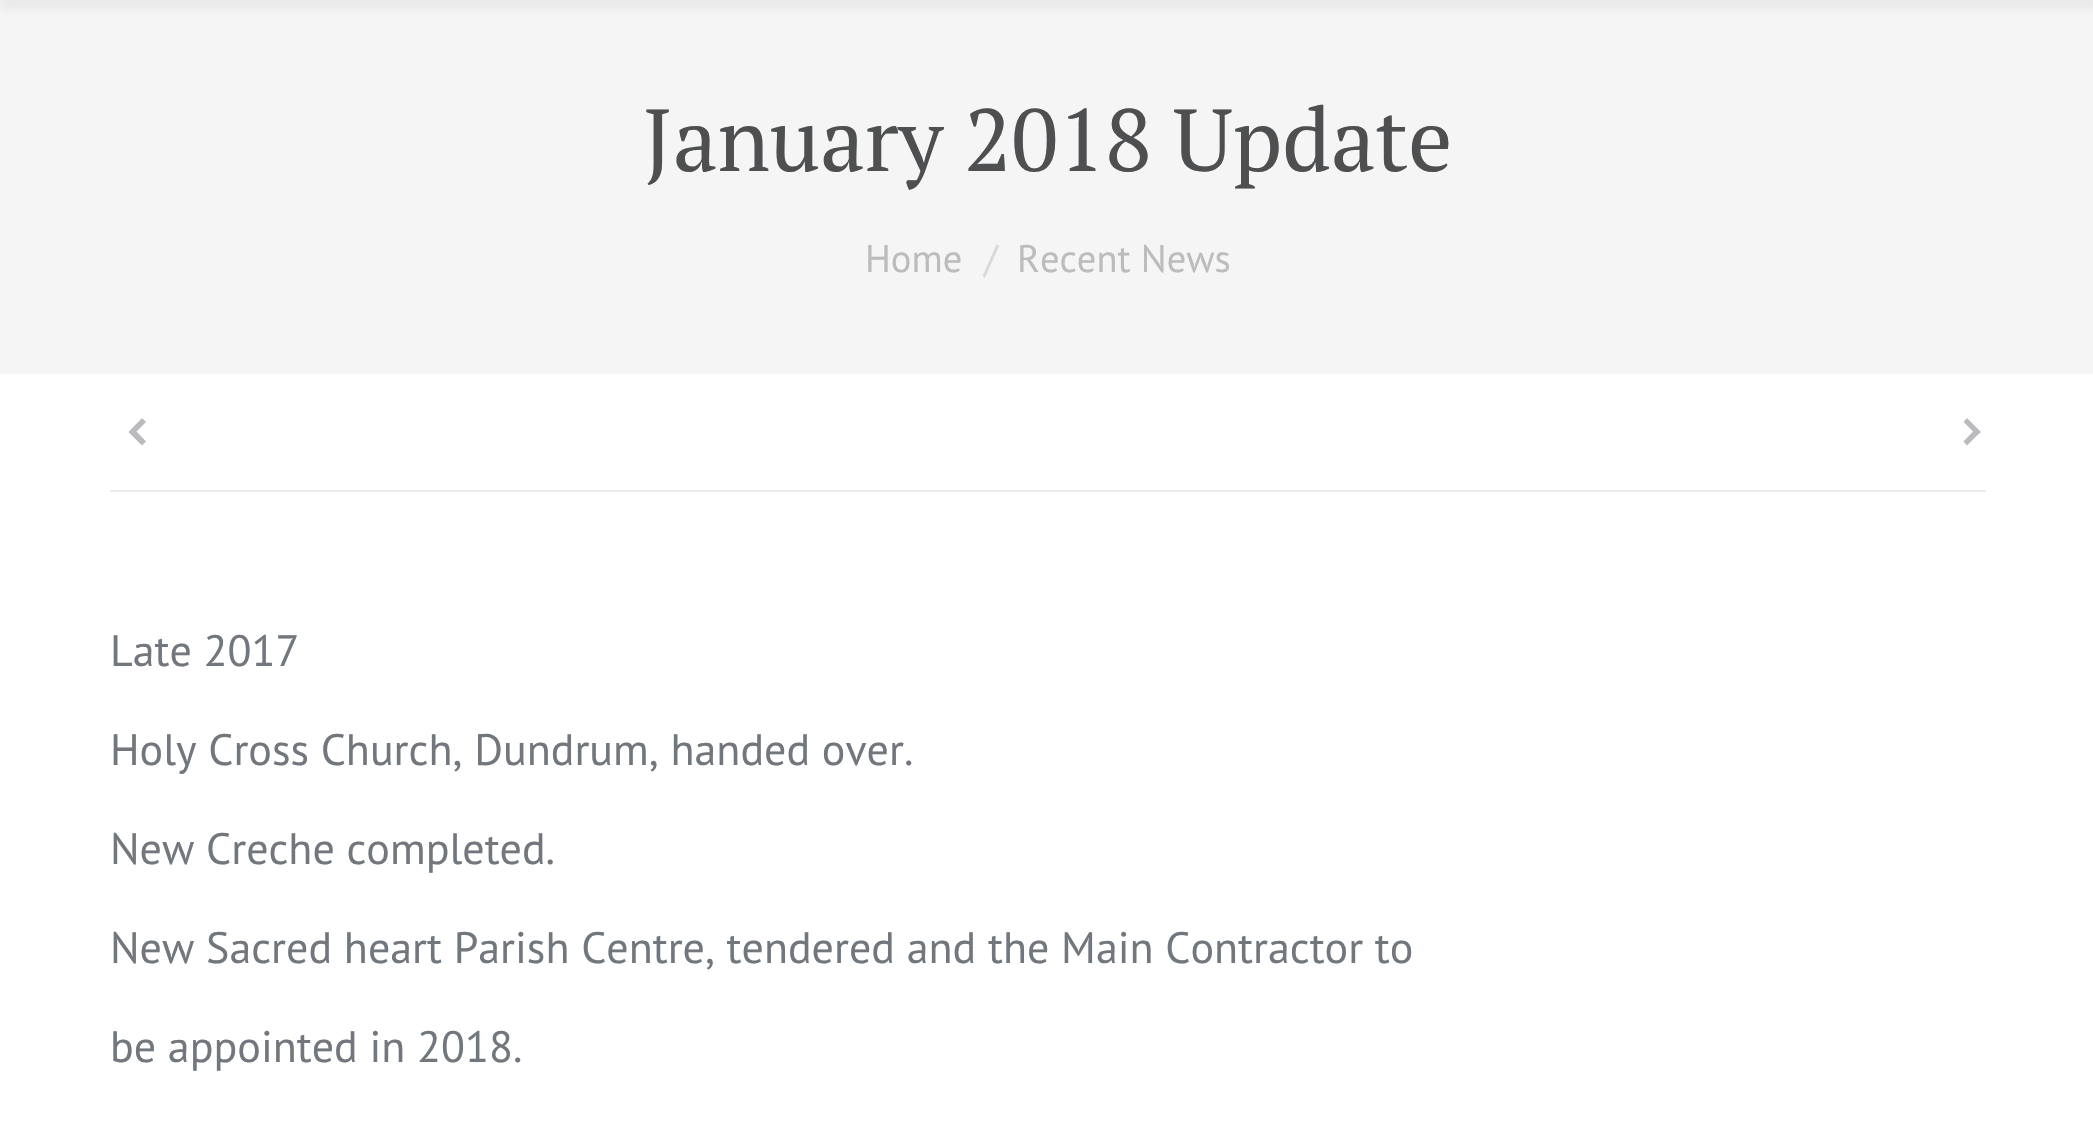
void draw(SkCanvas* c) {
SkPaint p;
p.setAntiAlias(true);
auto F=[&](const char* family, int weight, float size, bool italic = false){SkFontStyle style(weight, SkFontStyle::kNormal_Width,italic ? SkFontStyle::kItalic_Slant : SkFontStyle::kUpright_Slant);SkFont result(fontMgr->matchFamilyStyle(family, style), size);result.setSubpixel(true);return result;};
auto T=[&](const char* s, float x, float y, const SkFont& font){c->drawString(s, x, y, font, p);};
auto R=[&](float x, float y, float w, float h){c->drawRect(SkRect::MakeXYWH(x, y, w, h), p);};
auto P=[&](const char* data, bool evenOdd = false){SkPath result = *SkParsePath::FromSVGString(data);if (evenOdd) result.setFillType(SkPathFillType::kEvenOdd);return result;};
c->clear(0xffffffff);
p.setColor(0xfff5f5f5);
R(0,0,2093,374);
p.setColor(0x1a000000);
p.setMaskFilter(SkMaskFilter::MakeBlur(kNormal_SkBlurStyle, 5.5));
c->drawRect(SkRect::MakeXYWH(0,0,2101,6),p);
p.setMaskFilter(nullptr);
auto f1 = F("PT Serif",400,88);
p.setColor(0xff4d4f51);
T("January 2018 Update",643,171,f1);
auto f2 = F("PT Sans",400,38.5);
p.setColor(0xffbcbcbc);
T("Home",865,272,f2);
p.setColor(0xffd9d9d9);
T("/",984,272,f2);
p.setColor(0xffbcbcbc);
T("Recent News",1017,272,f2);
p.setColor(0xffeaebec);
R(110,490,1876,2);
p.setColor(0xffb9bbbe);
c->drawPath(P("M146 441.5l-9.5-10l9.5-9.5l-4-4l-13.5 14l13.5 13.5z"),p);
c->drawPath(P("M1981 432l-14-14l-3.5 4l9.5 9.5l-9.5 10l3.5 4l10-10z"),p);
auto f3 = F("PT Sans",400,44);
p.setColor(0xff72777d);
T("Late 2017",110,666,f3);
T("Holy Cross Church, Dundrum, handed over.",110,765,f3);
T("New Creche completed.",110,864,f3);
T("New Sacred heart Parish Centre, tendered and the Main Contractor to",110,963,f3);
T("be appointed in 2018.",110,1062,f3);
}
